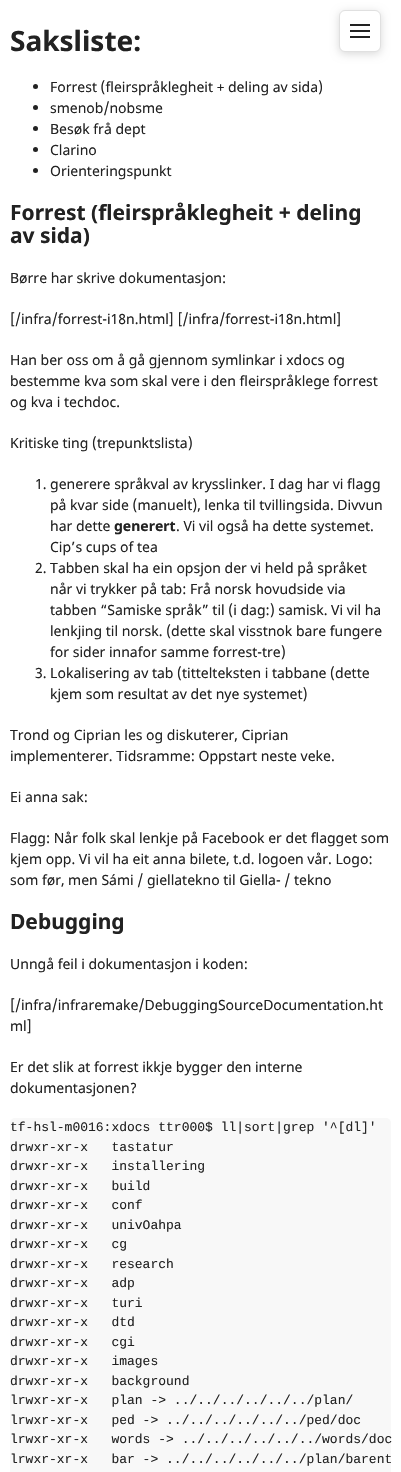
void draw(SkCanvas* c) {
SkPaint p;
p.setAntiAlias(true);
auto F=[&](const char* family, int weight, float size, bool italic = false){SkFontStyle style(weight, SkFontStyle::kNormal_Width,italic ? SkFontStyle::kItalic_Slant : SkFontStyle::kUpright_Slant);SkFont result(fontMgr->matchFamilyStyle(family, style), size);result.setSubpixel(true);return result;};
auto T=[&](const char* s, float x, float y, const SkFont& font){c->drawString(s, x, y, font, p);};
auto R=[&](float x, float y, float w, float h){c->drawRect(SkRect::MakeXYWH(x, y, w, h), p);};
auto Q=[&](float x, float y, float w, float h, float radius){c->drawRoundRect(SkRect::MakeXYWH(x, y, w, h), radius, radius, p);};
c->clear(0xffffffff);
p.setColor(0x26000000);
p.setMaskFilter(SkMaskFilter::MakeBlur(kNormal_SkBlurStyle, 4));
c->drawRoundRect(SkRect::MakeXYWH(339,12,42,42),6,6,p);
p.setMaskFilter(nullptr);
p.setColor(0xffffffff);
c->drawRoundRect(SkRect::MakeXYWH(339.5,10.5,41,41),5.5,5.5,p);
p.setStroke(true);
p.setStrokeWidth(1);
p.setColor(0xffe0e0e0);
c->drawRoundRect(SkRect::MakeXYWH(339.5,10.5,41,41),5.5,5.5,p);
p.setStroke(false);
p.setColor(0xff222222);
R(350,30,20,2);
R(350,24,20,2);
R(350,36,20,2);
auto f1 = F("Noto Sans",700,28);
T("Saksliste:",10,51,f1);
c->drawCircle(35.5,86.5,2.5,p);
auto f2 = F("Noto Sans",400,14);
T("Forrest (fleirspråklegheit + deling av sida)",50,92,f2);
c->drawCircle(35.5,107.5,2.5,p);
T("smenob/nobsme",50,113,f2);
c->drawCircle(35.5,128.5,2.5,p);
T("Besøk frå dept",50,134,f2);
c->drawCircle(35.5,149.5,2.5,p);
T("Clarino",50,155,f2);
c->drawCircle(35.5,170.5,2.5,p);
T("Orienteringspunkt",50,176,f2);
auto f3 = F("Noto Sans",700,21);
T("Forrest (fleirspråklegheit + deling",10,220,f3);
T("av sida)",10,243,f3);
T("Børre har skrive dokumentasjon:",10,283,f2);
T("[/infra/forrest-i18n.html] [/infra/forrest-i18n.html]",10,324,f2);
T("Han ber oss om å gå gjennom symlinkar i xdocs og",10,365,f2);
T("bestemme kva som skal vere i den fleirspråklege forrest",10,386,f2);
T("og kva i techdoc.",10,407,f2);
T("Kritiske ting (trepunktslista)",10,448,f2);
T("1. generere språkval av krysslinker. I dag har vi flagg",35,489,f2);
T("på kvar side (manuelt), lenka til tvillingsida. Divvun",50,510,f2);
T("har dette",50,531,f2);
auto f4 = F("Noto Sans",700,14);
T("generert",114,531,f4);
T(". Vi vil også ha dette systemet.",176,531,f2);
T("Cip’s cups of tea",50,552,f2);
T("2. Tabben skal ha ein opsjon der vi held på språket",35,573,f2);
T("når vi trykker på tab: Frå norsk hovudside via",50,594,f2);
T("tabben “Samiske språk” til (i dag:) samisk. Vi vil ha",50,615,f2);
T("lenkjing til norsk. (dette skal visstnok bare fungere",50,636,f2);
T("for sider innafor samme forrest-tre)",50,657,f2);
T("3. Lokalisering av tab (tittelteksten i tabbane (dette",35,678,f2);
T("kjem som resultat av det nye systemet)",50,699,f2);
T("Trond og Ciprian les og diskuterer, Ciprian",10,740,f2);
T("implementerer. Tidsramme: Oppstart neste veke.",10,761,f2);
T("Ei anna sak:",10,802,f2);
T("Flagg: Når folk skal lenkje på Facebook er det flagget som",10,843,f2);
T("kjem opp. Vi vil ha eit anna bilete, t.d. logoen vår. Logo:",10,864,f2);
T("som før, men Sámi / giellatekno til Giella- / tekno",10,885,f2);
T("Debugging",10,929,f3);
T("Unngå feil i dokumentasjon i koden:",10,969,f2);
T("[/infra/infraremake/DebuggingSourceDocumentation.ht",10,1010,f2);
T("ml]",10,1031,f2);
T("Er det slik at forrest ikkje bygger den interne",10,1072,f2);
T("dokumentasjonen?",10,1093,f2);
p.setColor(0xfff8f8f8);
Q(10,1118,381,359,5);
auto f5 = F("Liberation Mono",400,13);
p.setColor(0xff222222);
T("tf-hsl-m0016:xdocs ttr000$ ll|sort|grep '^[dl]'",10,1131,f5);
T("drwxr-xr-x   tastatur",10,1151,f5);
T("drwxr-xr-x   installering",10,1170,f5);
T("drwxr-xr-x   build",10,1190,f5);
T("drwxr-xr-x   conf",10,1209,f5);
T("drwxr-xr-x   univOahpa",10,1229,f5);
T("drwxr-xr-x   cg",10,1248,f5);
T("drwxr-xr-x   research",10,1268,f5);
T("drwxr-xr-x   adp",10,1287,f5);
T("drwxr-xr-x   turi",10,1307,f5);
T("drwxr-xr-x   dtd",10,1326,f5);
T("drwxr-xr-x   cgi",10,1346,f5);
T("drwxr-xr-x   images",10,1365,f5);
T("drwxr-xr-x   background",10,1385,f5);
T("lrwxr-xr-x   plan -> ../../../../../../plan/",10,1404,f5);
T("lrwxr-xr-x   ped -> ../../../../../../ped/doc",10,1424,f5);
T("lrwxr-xr-x   words -> ../../../../../../words/doc",10,1443,f5);
T("lrwxr-xr-x   bar -> ../../../../../../plan/barent",10,1463,f5);
}
